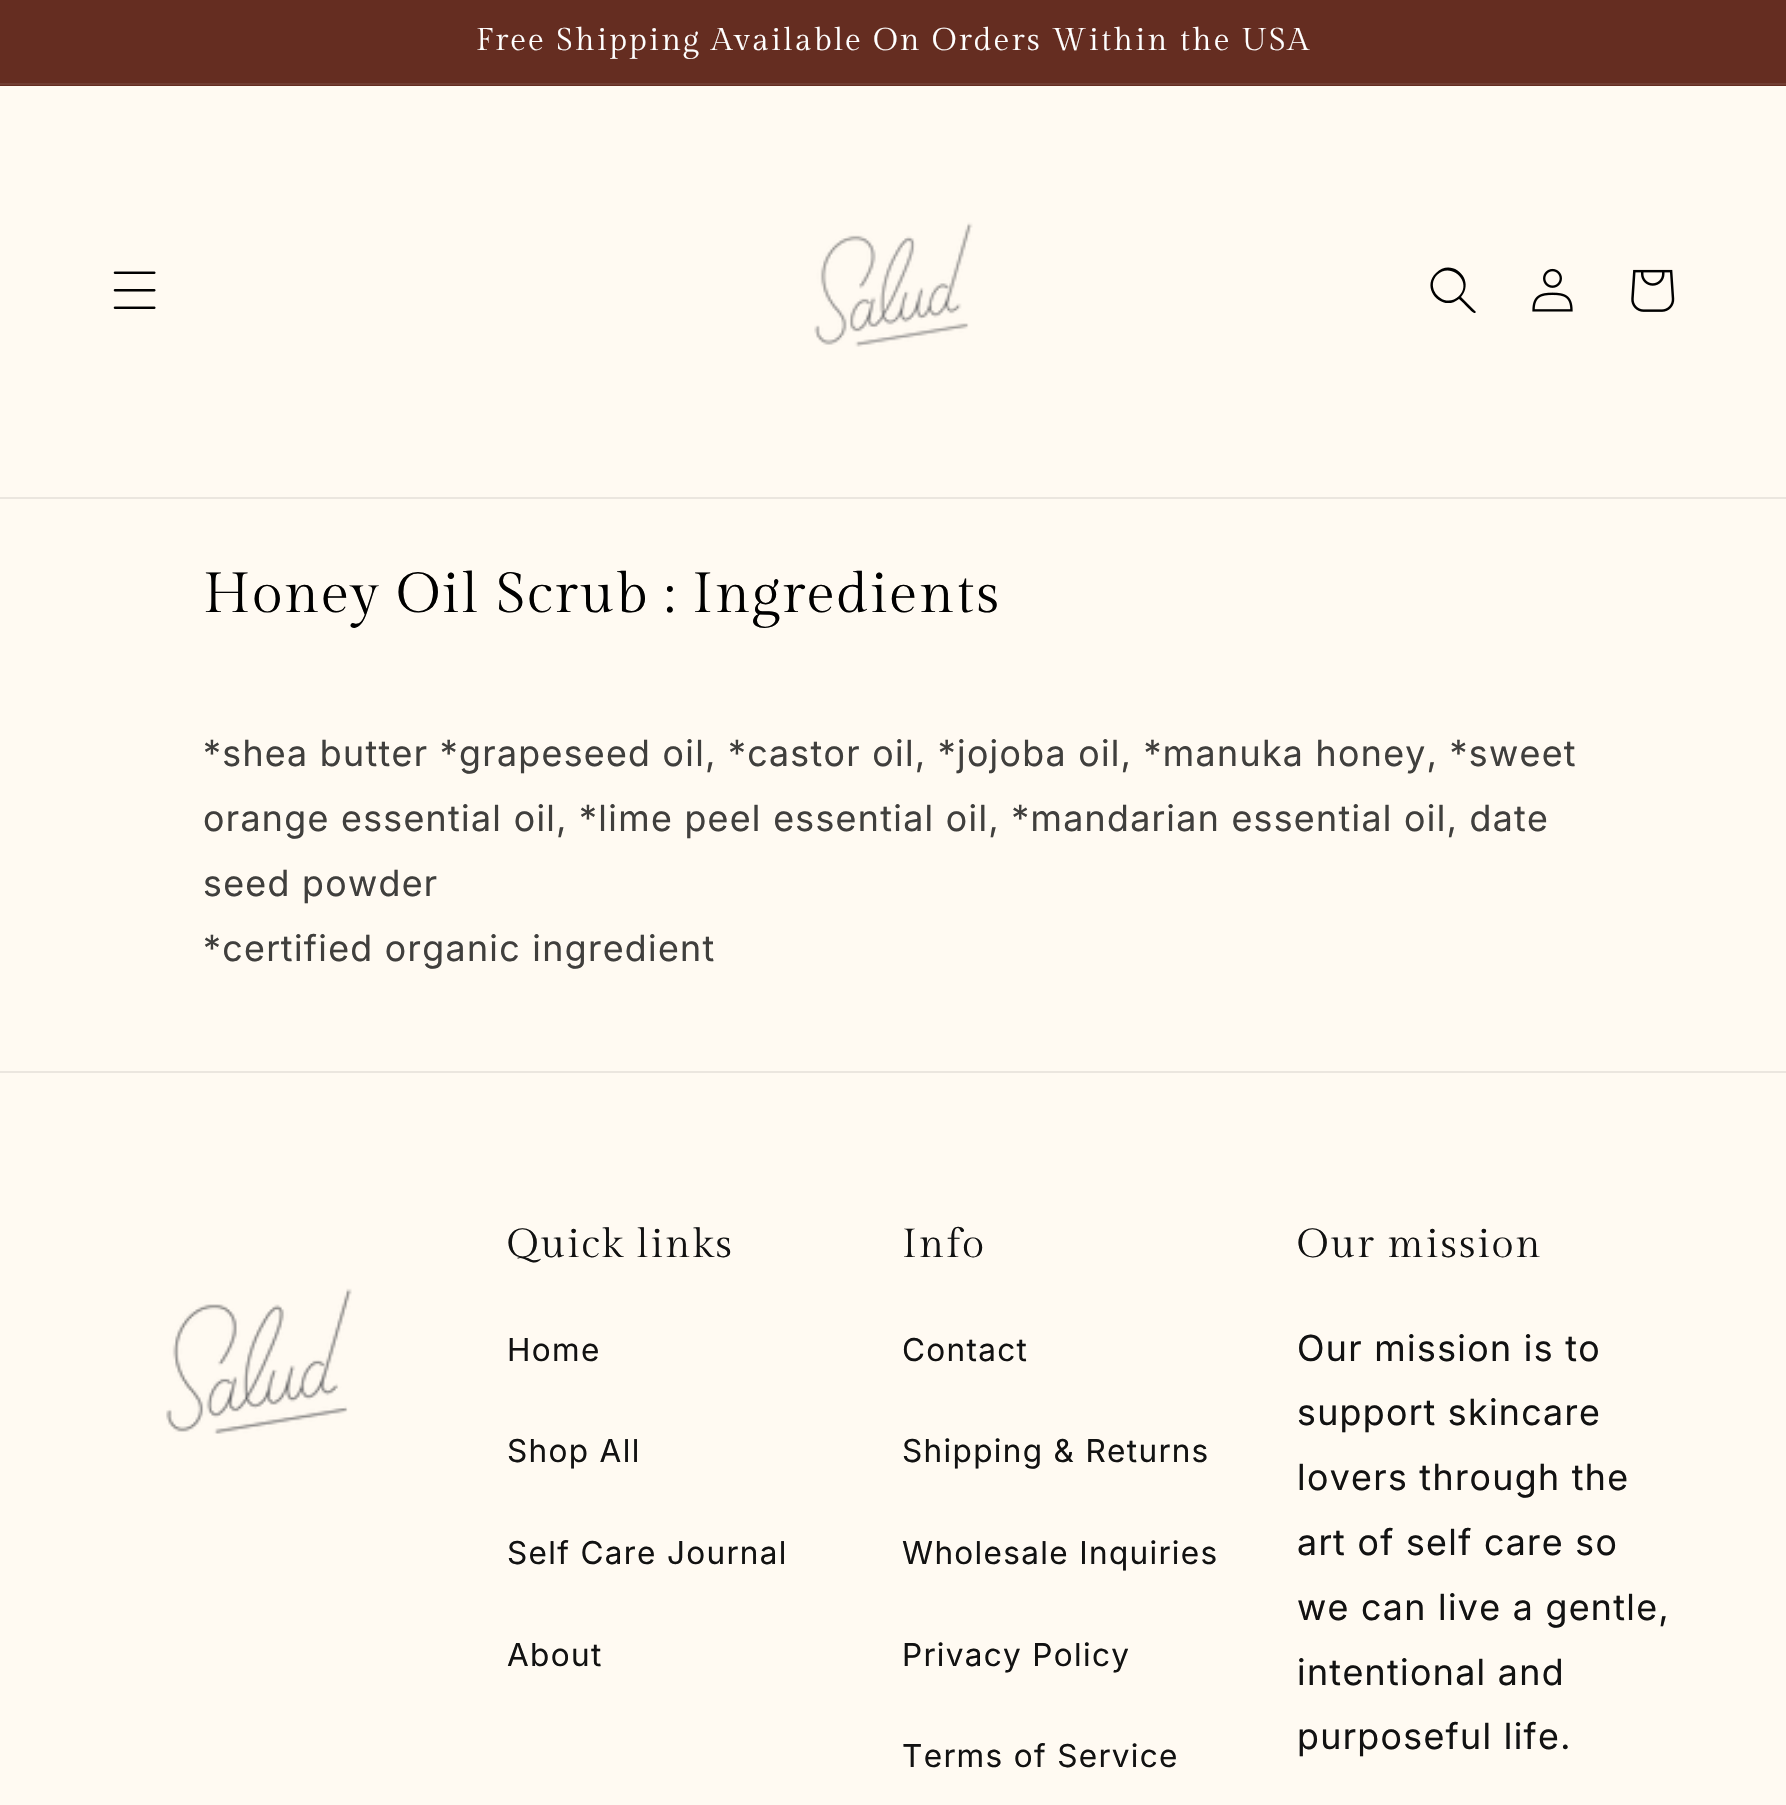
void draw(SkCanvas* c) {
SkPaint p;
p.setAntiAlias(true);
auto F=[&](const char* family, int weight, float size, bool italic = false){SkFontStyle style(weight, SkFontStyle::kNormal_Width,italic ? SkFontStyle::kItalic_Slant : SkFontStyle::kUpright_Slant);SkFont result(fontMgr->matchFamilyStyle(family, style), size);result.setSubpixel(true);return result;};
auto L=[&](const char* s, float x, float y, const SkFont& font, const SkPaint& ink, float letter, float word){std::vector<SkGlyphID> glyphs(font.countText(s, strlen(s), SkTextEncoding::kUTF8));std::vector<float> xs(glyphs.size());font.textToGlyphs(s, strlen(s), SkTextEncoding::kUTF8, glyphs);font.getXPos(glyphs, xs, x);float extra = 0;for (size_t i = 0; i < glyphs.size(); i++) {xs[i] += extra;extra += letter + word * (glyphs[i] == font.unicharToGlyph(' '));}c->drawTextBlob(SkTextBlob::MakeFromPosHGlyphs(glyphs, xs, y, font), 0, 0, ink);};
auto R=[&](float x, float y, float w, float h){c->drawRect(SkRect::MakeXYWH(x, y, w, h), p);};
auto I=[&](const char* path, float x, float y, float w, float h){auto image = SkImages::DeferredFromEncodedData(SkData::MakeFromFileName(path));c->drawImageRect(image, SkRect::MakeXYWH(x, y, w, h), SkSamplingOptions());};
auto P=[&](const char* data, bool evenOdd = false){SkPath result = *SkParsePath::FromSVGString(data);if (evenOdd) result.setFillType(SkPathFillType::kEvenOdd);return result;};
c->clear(0xfffffaf2);
p.setColor(0xff652d21);
R(0,0,1786,86);
p.setColor(0xff713e33);
R(0,83,1786,2);
auto f1 = F("Gilda Display",400,31.5);
p.setColor(0xffffffff);
L("Free Shipping Available On Orders Within the USA",476,50,f1,p,2.25,0);
p.setColor(0xffebe6df);
R(0,497,1786,2);
I("1.png",113,271,43,38);
I("2.png",814,222,159,125);
p.setColor(0xff000000);
c->drawPath(P("M1459 296c-14 14-35-7-22-21c14-14 36 7 22 21zm0 3c-17 14-39-11-23-26c16-16 40 7 25 24l15 15l-1 1c-2 1-13-12-16-14z",true),p);
I("3.png",1532,268,41,44);
I("4.png",1631,269,44,43);
auto f2 = F("Gilda Display",400,56.25);
L("Honey Oil Scrub : Ingredients",203,612,f2,p,1.8,0);
auto f3 = F("Inter",400,36);
p.setColor(0xff403f3d);
L("*shea butter *grapeseed oil, *castor oil, *jojoba oil, *manuka honey, *sweet",203,766,f3,p,1.35,0);
L("orange essential oil, *lime peel essential oil, *mandarian essential oil, date",203,831,f3,p,1.35,0);
L("seed powder",203,896,f3,p,1.35,0);
L("*certified organic ingredient",203,961,f3,p,1.35,0);
p.setColor(0xffebe6df);
R(0,1071,1786,2);
I("5.png",166,1288,186,146);
auto f4 = F("Gilda Display",400,40.5);
p.setColor(0xff121212);
L("Quick links",507,1257,f4,p,1.8,0);
auto f5 = F("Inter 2",400,31.5);
L("Home",507,1361,f5,p,1.35,0);
L("Shop All",507,1462,f5,p,1.35,0);
L("Self Care Journal",507,1564,f5,p,1.35,0);
L("About",507,1666,f5,p,1.35,0);
L("Info",902,1257,f4,p,1.8,0);
L("Contact",902,1361,f5,p,1.35,0);
L("Shipping & Returns",902,1462,f5,p,1.35,0);
L("Wholesale Inquiries",902,1564,f5,p,1.35,0);
L("Privacy Policy",902,1666,f5,p,1.35,0);
L("Terms of Service",902,1767,f5,p,1.35,0);
L("Our mission",1297,1257,f4,p,1.8,0);
L("Our mission is to",1297,1361,f3,p,1.35,0);
L("support skincare",1297,1425,f3,p,1.35,0);
L("lovers through the",1297,1490,f3,p,1.35,0);
L("art of self care so",1297,1555,f3,p,1.35,0);
L("we can live a gentle,",1297,1620,f3,p,1.35,0);
L("intentional and",1297,1685,f3,p,1.35,0);
L("purposeful life.",1297,1749,f3,p,1.35,0);
}
